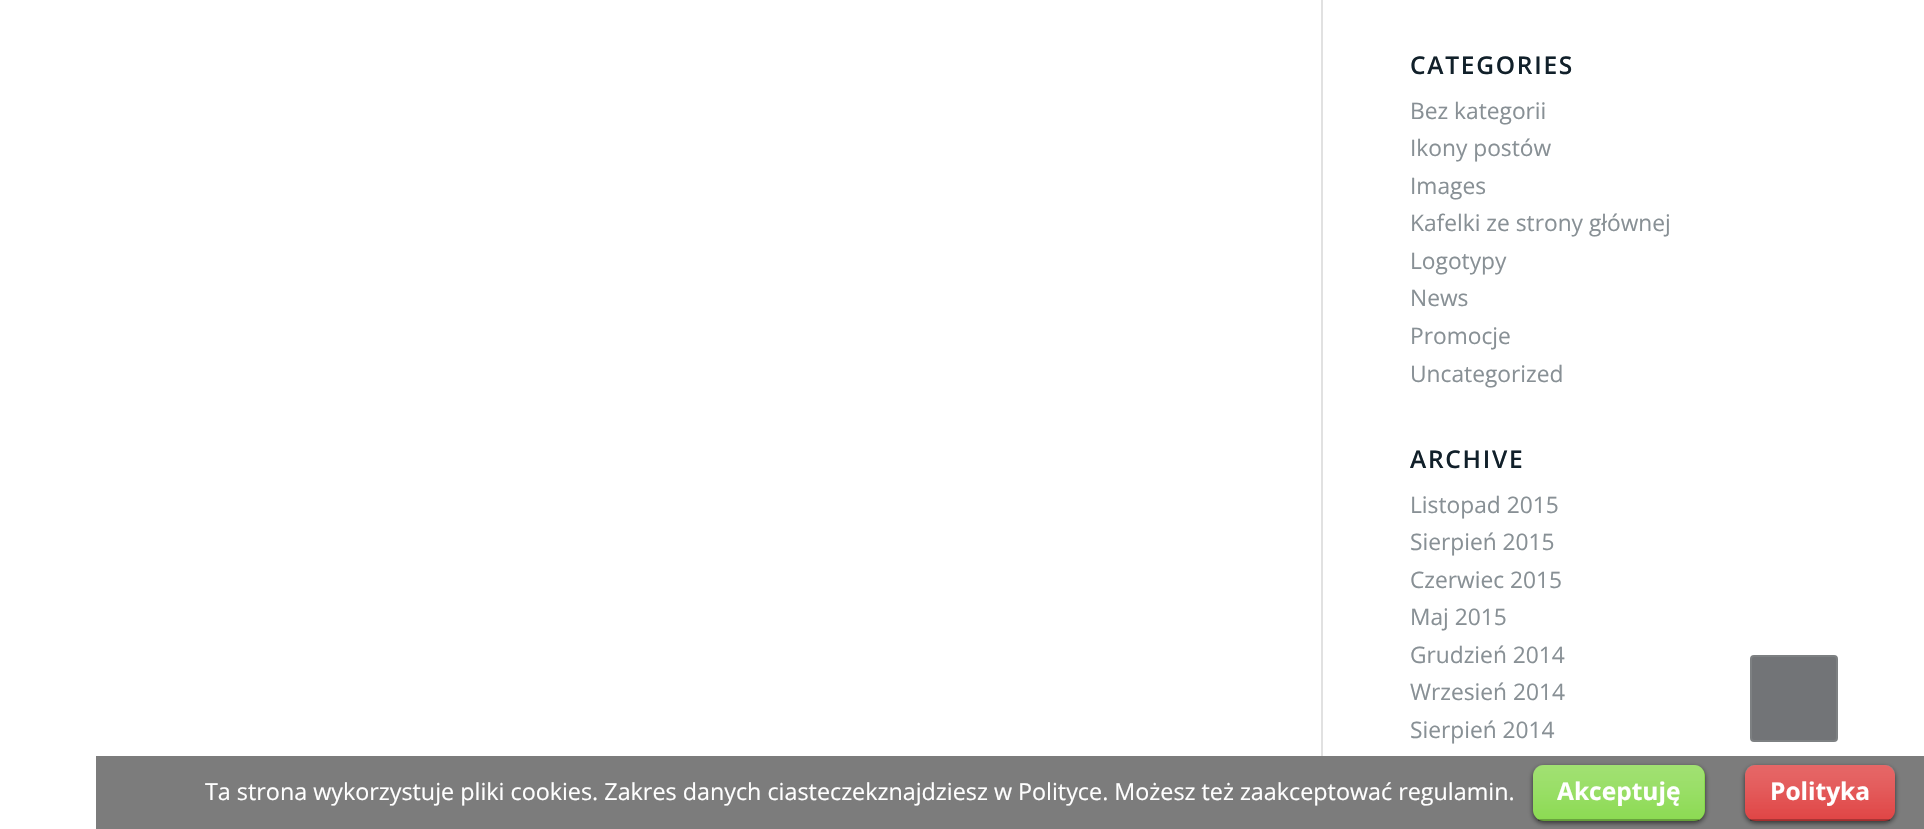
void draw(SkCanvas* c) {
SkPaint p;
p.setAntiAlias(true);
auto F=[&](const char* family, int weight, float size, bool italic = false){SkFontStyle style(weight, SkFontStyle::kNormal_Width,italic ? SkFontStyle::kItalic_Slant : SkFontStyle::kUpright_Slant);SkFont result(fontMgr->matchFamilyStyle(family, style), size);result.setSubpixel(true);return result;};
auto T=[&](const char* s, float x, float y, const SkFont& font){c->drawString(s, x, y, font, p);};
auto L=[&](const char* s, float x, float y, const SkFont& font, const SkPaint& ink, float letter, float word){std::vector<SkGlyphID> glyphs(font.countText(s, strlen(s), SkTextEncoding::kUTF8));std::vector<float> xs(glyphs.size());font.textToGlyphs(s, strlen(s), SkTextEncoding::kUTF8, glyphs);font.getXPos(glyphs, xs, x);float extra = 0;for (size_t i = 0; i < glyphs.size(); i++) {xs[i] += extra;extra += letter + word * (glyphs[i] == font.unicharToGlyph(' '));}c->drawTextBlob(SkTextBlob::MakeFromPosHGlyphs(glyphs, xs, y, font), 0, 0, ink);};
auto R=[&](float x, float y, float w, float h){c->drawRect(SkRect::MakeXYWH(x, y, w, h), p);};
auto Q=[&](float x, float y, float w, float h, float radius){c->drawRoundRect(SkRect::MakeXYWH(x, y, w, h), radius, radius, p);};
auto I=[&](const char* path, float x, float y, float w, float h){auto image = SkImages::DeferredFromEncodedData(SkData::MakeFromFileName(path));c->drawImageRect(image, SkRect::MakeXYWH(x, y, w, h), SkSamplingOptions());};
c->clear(0xffffffff);
p.setColor(0xffe1e1e1);
R(1321,0,2,756);
auto f1 = F("Open Sans",600,24.5);
p.setColor(0xff11202a);
L("CATEGORIES",1410,74,f1,p,1.75,0);
auto f2 = F("Open Sans",400,22.75);
p.setColor(0xff889095);
T("Bez kategorii",1410,119,f2);
T("Ikony postów",1410,156,f2);
T("Images",1410,194,f2);
T("Kafelki ze strony głównej",1410,231,f2);
T("Logotypy",1410,269,f2);
T("News",1410,306,f2);
T("Promocje",1410,344,f2);
T("Uncategorized",1410,382,f2);
p.setColor(0xff11202a);
L("ARCHIVE",1410,468,f1,p,1.75,0);
p.setColor(0xff889095);
T("Listopad 2015",1410,513,f2);
T("Sierpień 2015",1410,550,f2);
T("Czerwiec 2015",1410,588,f2);
T("Maj 2015",1410,625,f2);
T("Grudzień 2014",1410,663,f2);
T("Wrzesień 2014",1410,700,f2);
T("Sierpień 2014",1410,738,f2);
p.setColor(0xff727477);
c->drawRoundRect(SkRect::MakeXYWH(1751,656,86,85),3,3,p);
p.setStroke(true);
p.setStrokeWidth(2);
p.setColor(0xff7d8082);
c->drawRoundRect(SkRect::MakeXYWH(1751,656,86,85),3,3,p);
p.setStroke(false);
p.setColor(0xff7c7c7c);
R(96,756,1828,73);
auto f3 = F("Open Sans",400,23.33);
p.setColor(0xffffffff);
T("Ta strona wykorzystuje pliki cookies. Zakres danych ciasteczekznajdziesz w Polityce. Możesz też zaakceptować regulamin.",205,800,f3);
p.setColor(0x99000000);
p.setMaskFilter(SkMaskFilter::MakeBlur(kNormal_SkBlurStyle, 2.5));
c->drawRoundRect(SkRect::MakeXYWH(1533,767,172,56),11,11,p);
p.setMaskFilter(nullptr);
p.setColor(0xff81d742);
Q(1533,765,172,56,11);
I("1.png",1533,765,172,56);
p.setColor(0x40000000);
R(1538,819,161,2);
auto f4 = F("Open Sans",700,24.5);
p.setColor(0xffffffff);
T("Akceptuję",1557,800,f4);
p.setColor(0x99000000);
p.setMaskFilter(SkMaskFilter::MakeBlur(kNormal_SkBlurStyle, 2.5));
c->drawRoundRect(SkRect::MakeXYWH(1745,767,150,56),11,11,p);
p.setMaskFilter(nullptr);
p.setColor(0xffdd3333);
Q(1745,765,150,56,11);
I("2.png",1745,765,150,56);
p.setColor(0x40000000);
R(1750,819,140,2);
p.setColor(0xffffffff);
T("Polityka",1770,800,f4);
}
